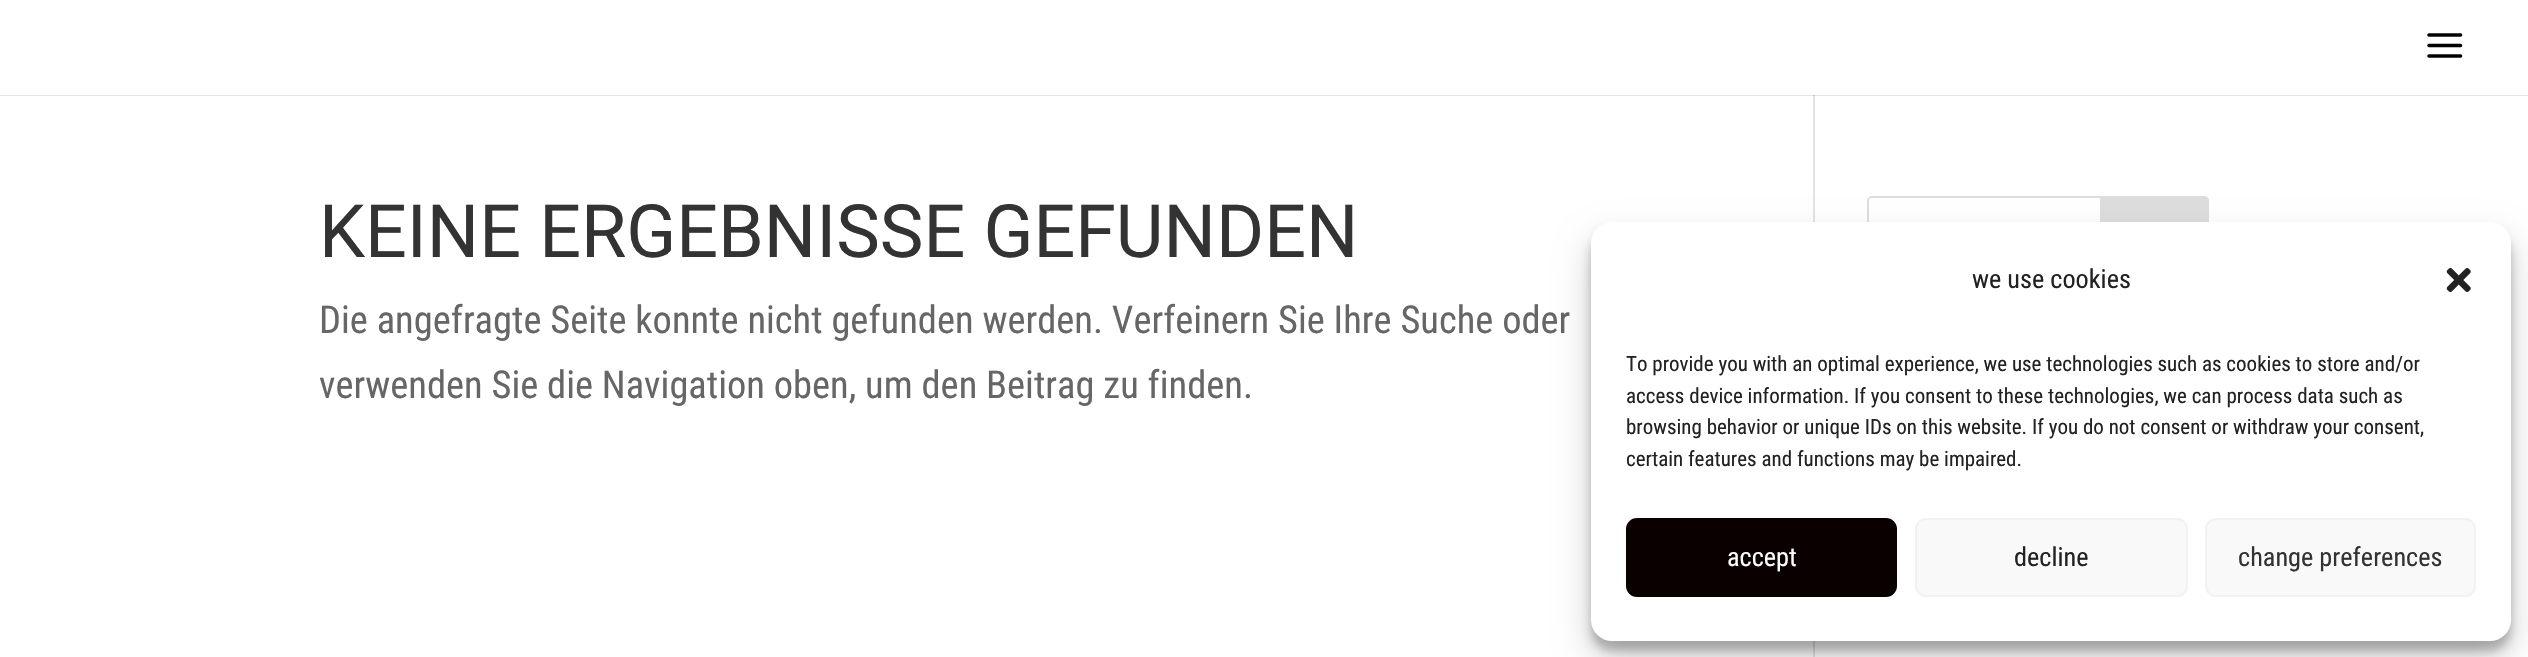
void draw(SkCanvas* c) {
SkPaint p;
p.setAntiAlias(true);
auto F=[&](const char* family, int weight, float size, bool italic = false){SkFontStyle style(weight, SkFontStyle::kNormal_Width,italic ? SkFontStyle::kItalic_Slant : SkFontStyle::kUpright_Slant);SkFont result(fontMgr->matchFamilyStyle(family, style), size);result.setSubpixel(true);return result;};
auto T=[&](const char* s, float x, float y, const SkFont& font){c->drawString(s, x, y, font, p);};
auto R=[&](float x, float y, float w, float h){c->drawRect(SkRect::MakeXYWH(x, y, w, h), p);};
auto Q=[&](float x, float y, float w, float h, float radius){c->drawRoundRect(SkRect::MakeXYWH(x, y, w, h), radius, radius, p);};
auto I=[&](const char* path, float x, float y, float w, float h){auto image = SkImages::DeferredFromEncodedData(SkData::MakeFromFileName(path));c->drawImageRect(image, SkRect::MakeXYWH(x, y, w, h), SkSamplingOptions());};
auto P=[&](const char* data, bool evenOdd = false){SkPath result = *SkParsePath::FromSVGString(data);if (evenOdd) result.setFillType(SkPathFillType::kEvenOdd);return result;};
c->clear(0xffffffff);
p.setColor(0xffe2e2e2);
R(1813,95,2,562);
p.setColor(0x1a000000);
c->drawPath(P("M0 94v2h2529v-94v92z"),p);
p.setColor(0xffffffff);
R(0,94,2528,1);
I("1.png",2427,33,36,25);
auto f1 = F("Roboto",400,73.5);
p.setColor(0xff333333);
T("KEINE ERGEBNISSE GEFUNDEN",319,257,f1);
auto f2 = F("Roboto Condensed",400,38.5);
p.setColor(0xff666666);
T("Die angefragte Seite konnte nicht gefunden werden. Verfeinern Sie Ihre Suche oder",319,333,f2);
T("verwenden Sie die Navigation oben, um den Beitrag zu finden.",319,398,f2);
p.setStroke(true);
p.setStrokeWidth(2);
p.setColor(0xffdddddd);
c->drawRoundRect(SkRect::MakeXYWH(1868,197,340,68),4,4,p);
p.setStroke(false);
c->drawPath(P("M2101 197h103c2 0 4 2 4 4v60c0 2-2 4-4 4h-103z"),p);
p.setStroke(true);
c->drawPath(P("M2101 197h103c2 0 4 2 4 4v60c0 2-2 4-4 4h-103z"),p);
p.setStroke(false);
p.setColor(0x3b000000);
p.setMaskFilter(SkMaskFilter::MakeBlur(kNormal_SkBlurStyle, 5));
c->drawRoundRect(SkRect::MakeXYWH(1591,233,920,418),21,21,p);
p.setMaskFilter(nullptr);
p.setColor(0x30000000);
p.setMaskFilter(SkMaskFilter::MakeBlur(kNormal_SkBlurStyle, 17.5));
c->drawRoundRect(SkRect::MakeXYWH(1591,240,920,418),21,21,p);
p.setMaskFilter(nullptr);
p.setColor(0xffffffff);
Q(1591,222,920,419,21);
auto f3 = F("Roboto Condensed",400,26.25);
p.setColor(0xff222222);
T("we use cookies",1972,288,f3);
I("2.png",2446,268,25,24);
auto f4 = F("Roboto Condensed",400,21);
T("To provide you with an optimal experience, we use technologies such as cookies to store and/or",1626,371,f4);
T("access device information. If you consent to these technologies, we can process data such as",1626,403,f4);
T("browsing behavior or unique IDs on this website. If you do not consent or withdraw your consent,",1626,434,f4);
T("certain features and functions may be impaired.",1626,466,f4);
p.setColor(0xff0a0000);
c->drawRoundRect(SkRect::MakeXYWH(1627,519,269,77),10,10,p);
p.setStroke(true);
c->drawRoundRect(SkRect::MakeXYWH(1627,519,269,77),10,10,p);
p.setStroke(false);
p.setColor(0xffffffff);
T("accept",1727,566,f3);
p.setColor(0xfff9f9f9);
c->drawRoundRect(SkRect::MakeXYWH(1916,519,271,77),10,10,p);
p.setStroke(true);
p.setColor(0xfff2f2f2);
c->drawRoundRect(SkRect::MakeXYWH(1916,519,271,77),10,10,p);
p.setStroke(false);
p.setColor(0xff222222);
T("decline",2014,566,f3);
p.setColor(0xfff9f9f9);
c->drawRoundRect(SkRect::MakeXYWH(2206,519,269,77),10,10,p);
p.setStroke(true);
p.setColor(0xfff2f2f2);
c->drawRoundRect(SkRect::MakeXYWH(2206,519,269,77),10,10,p);
p.setStroke(false);
p.setColor(0xff333333);
T("change preferences",2238,566,f3);
}
